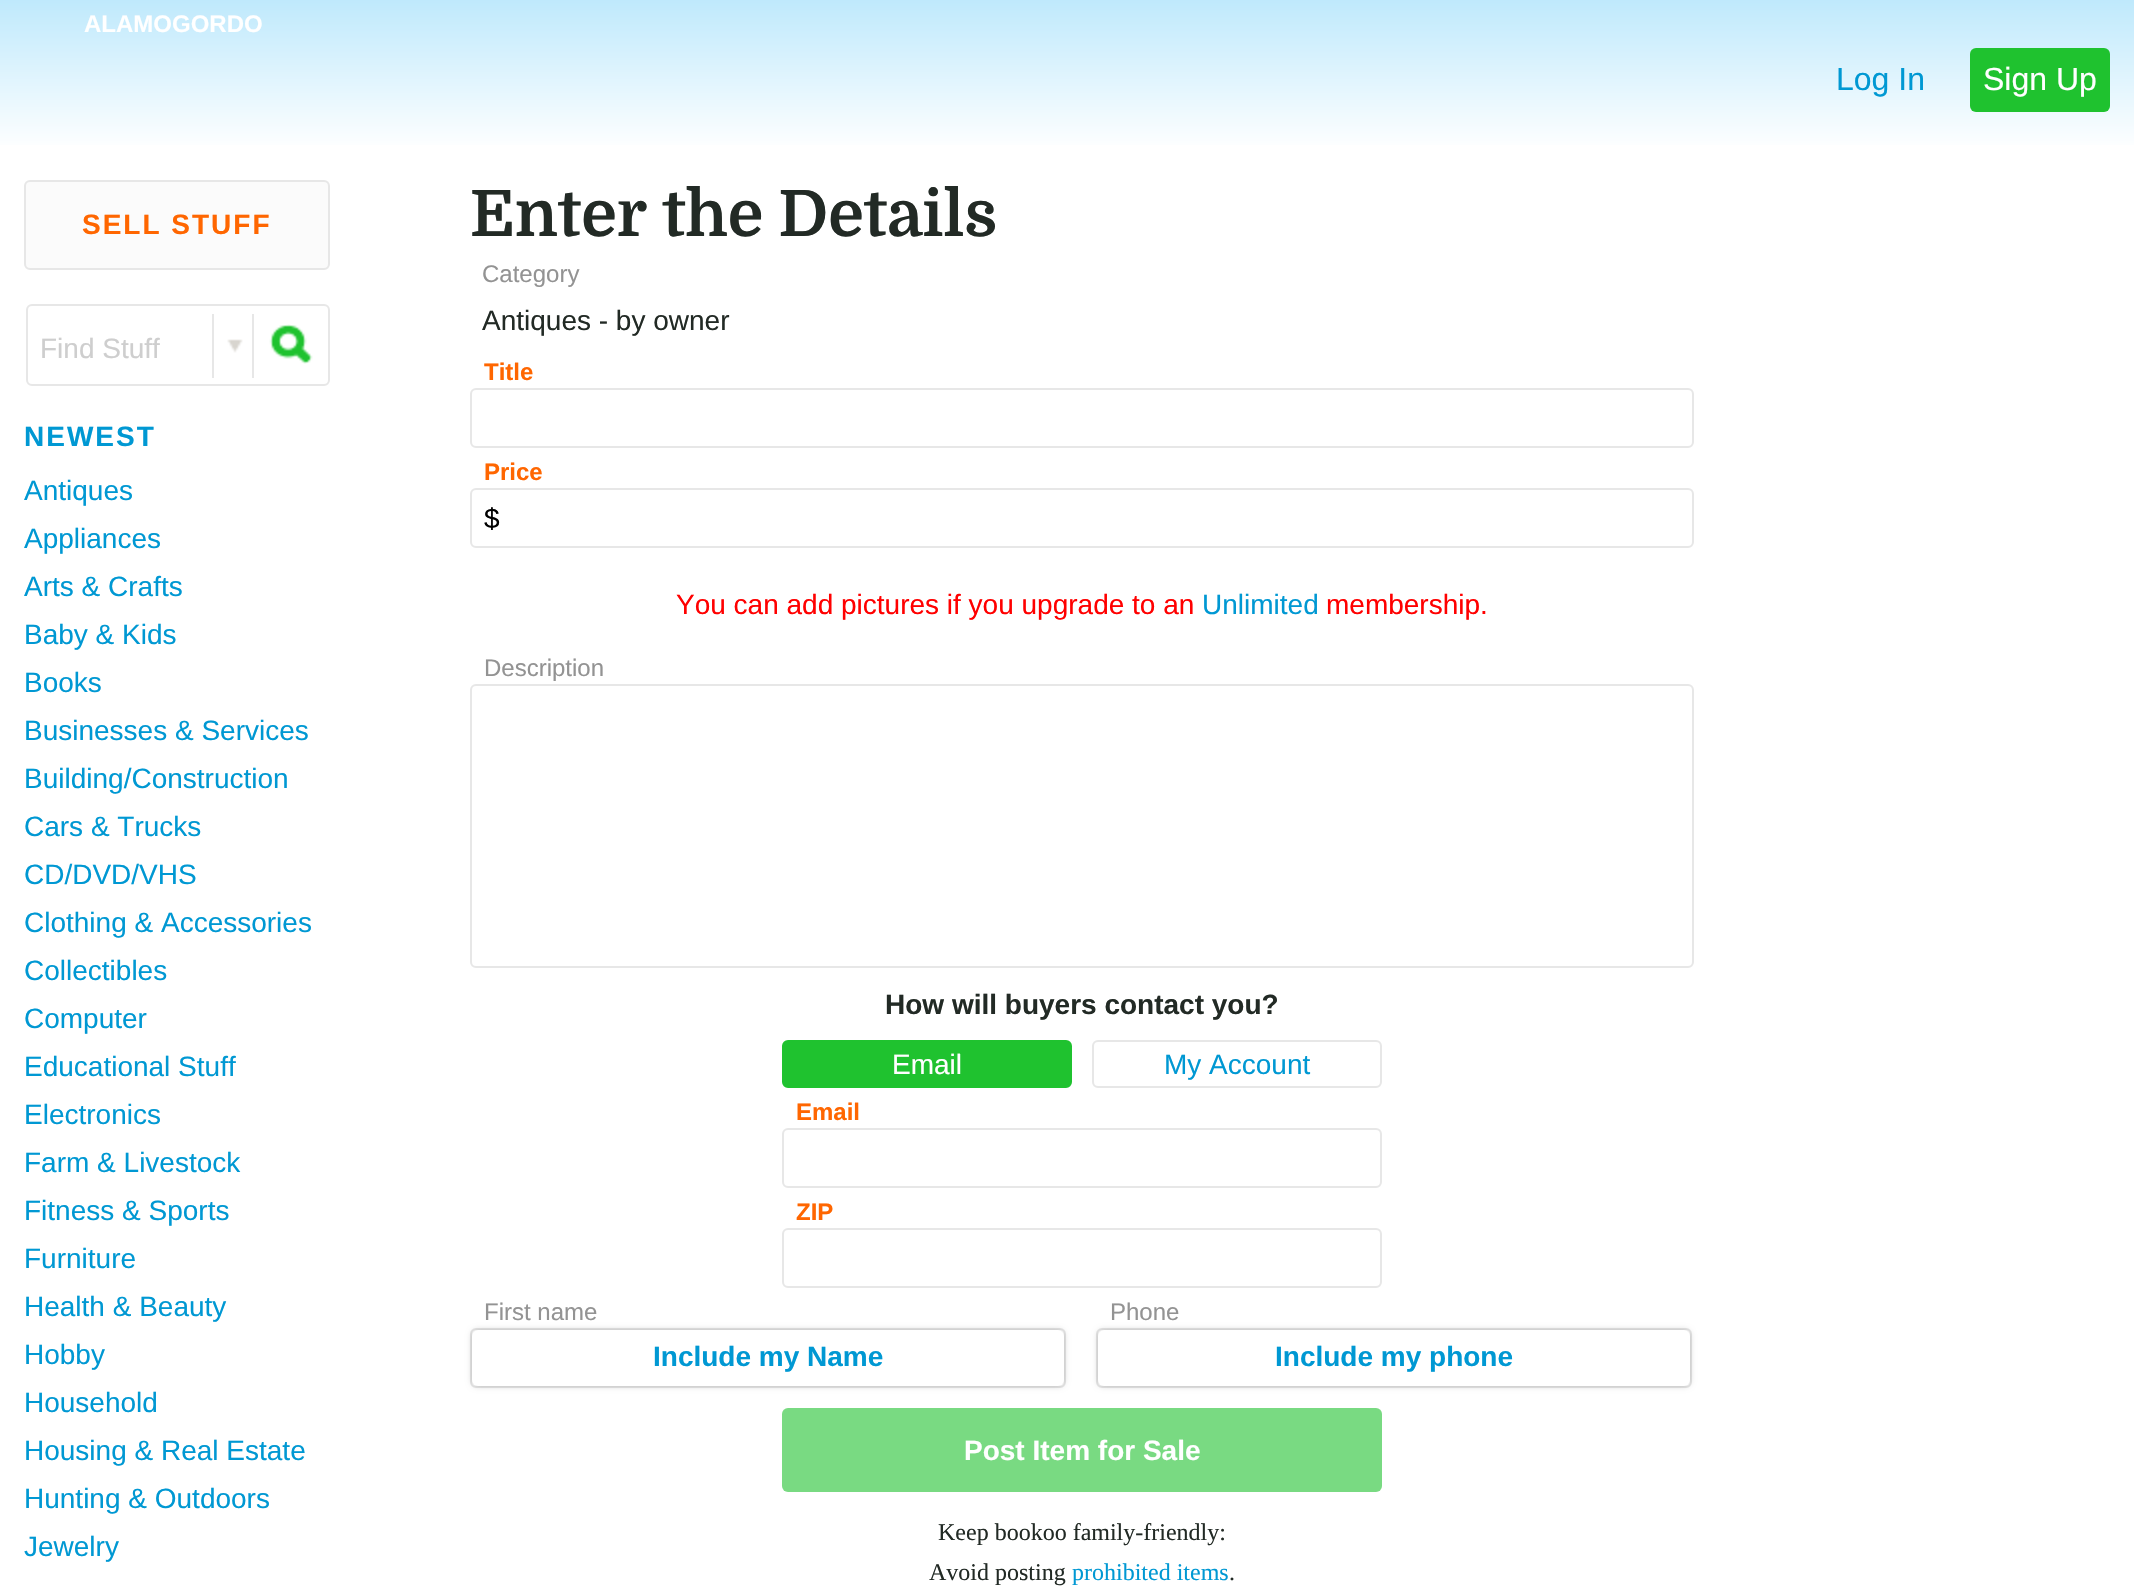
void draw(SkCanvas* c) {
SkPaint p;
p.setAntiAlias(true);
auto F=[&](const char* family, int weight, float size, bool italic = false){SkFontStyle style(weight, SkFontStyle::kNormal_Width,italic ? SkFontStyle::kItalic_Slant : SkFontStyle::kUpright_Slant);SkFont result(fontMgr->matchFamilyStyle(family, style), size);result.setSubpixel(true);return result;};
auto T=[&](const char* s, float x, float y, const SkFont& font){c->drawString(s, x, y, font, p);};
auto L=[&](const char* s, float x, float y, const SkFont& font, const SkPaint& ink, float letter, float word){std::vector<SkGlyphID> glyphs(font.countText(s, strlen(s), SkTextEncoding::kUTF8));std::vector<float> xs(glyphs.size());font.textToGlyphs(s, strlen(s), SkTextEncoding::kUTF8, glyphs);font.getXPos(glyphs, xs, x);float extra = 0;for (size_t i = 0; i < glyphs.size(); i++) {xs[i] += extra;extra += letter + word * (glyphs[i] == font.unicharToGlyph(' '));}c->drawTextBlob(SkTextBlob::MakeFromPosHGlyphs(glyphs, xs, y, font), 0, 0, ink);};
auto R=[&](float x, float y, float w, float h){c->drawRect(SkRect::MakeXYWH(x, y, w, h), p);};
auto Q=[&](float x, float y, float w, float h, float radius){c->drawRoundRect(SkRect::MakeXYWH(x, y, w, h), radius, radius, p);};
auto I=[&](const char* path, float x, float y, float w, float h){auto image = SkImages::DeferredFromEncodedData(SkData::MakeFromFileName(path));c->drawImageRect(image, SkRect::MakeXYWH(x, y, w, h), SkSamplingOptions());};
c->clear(0xffffffff);
{
const SkColor colors[] = {0xffbfe9fc,0xffffffff};
const float stops[] = {0,.9};
const SkPoint ends[] = {{1067,0}, {1067,168}};
p.setShader(SkGradientShader::MakeLinear(ends, colors, stops, 2, SkTileMode::kClamp));
p.setAlpha(255);
}
R(0,0,2134,145);
auto f1 = F("Liberation Sans",700,24);
p.setShader(nullptr);
p.setColor(0xffffffff);
T("ALAMOGORDO",84,32,f1);
auto f2 = F("Liberation Sans",400,32);
p.setColor(0xff0098d3);
T("Log In",1836,90,f2);
p.setColor(0xff1fc22f);
Q(1970,48,140,64,6);
p.setColor(0xffffffff);
T("Sign Up",1983,90,f2);
p.setColor(0xfffbfbfb);
c->drawRoundRect(SkRect::MakeXYWH(25,181,304,88),5,5,p);
p.setStroke(true);
p.setStrokeWidth(2);
p.setColor(0xffe7e7e7);
c->drawRoundRect(SkRect::MakeXYWH(25,181,304,88),5,5,p);
auto f3 = F("Liberation Sans",700,28);
p.setStroke(false);
p.setColor(0xffff6600);
L("SELL STUFF",82,234,f3,p,2,0);
p.setStroke(true);
p.setColor(0xffe7e7e7);
c->drawRoundRect(SkRect::MakeXYWH(27,305,302,80),5,5,p);
auto f4 = F("Liberation Sans",400,28);
p.setStroke(false);
p.setColor(0xffcecece);
T("Find Stuff",40,358,f4);
p.setColor(0xffe7e7e7);
R(212,314,2,64);
I("1.png",227,339,16,14);
R(252,314,2,64);
I("2.png",269,324,44,40);
p.setColor(0xff0098d3);
L("NEWEST",24,446,f3,p,2,0);
T("Antiques",24,500,f4);
T("Appliances",24,548,f4);
T("Arts & Crafts",24,596,f4);
T("Baby & Kids",24,644,f4);
T("Books",24,692,f4);
T("Businesses & Services",24,740,f4);
T("Building/Construction",24,788,f4);
T("Cars & Trucks",24,836,f4);
T("CD/DVD/VHS",24,884,f4);
T("Clothing & Accessories",24,932,f4);
T("Collectibles",24,980,f4);
T("Computer",24,1028,f4);
T("Educational Stuff",24,1076,f4);
T("Electronics",24,1124,f4);
T("Farm & Livestock",24,1172,f4);
T("Fitness & Sports",24,1220,f4);
T("Furniture",24,1268,f4);
T("Health & Beauty",24,1316,f4);
T("Hobby",24,1364,f4);
T("Household",24,1412,f4);
T("Housing & Real Estate",24,1460,f4);
T("Hunting & Outdoors",24,1508,f4);
T("Jewelry",24,1556,f4);
auto f5 = F("Domine",700,64);
p.setColor(0xff222a25);
T("Enter the Details",470,236,f5);
auto f6 = F("Liberation Sans",400,24);
p.setColor(0xff939393);
T("Category",482,282,f6);
p.setColor(0xff222a25);
T("Antiques - by owner",482,330,f4);
p.setStroke(true);
p.setColor(0xffe7e7e7);
c->drawRoundRect(SkRect::MakeXYWH(471,389,1222,58),5,5,p);
p.setStroke(false);
p.setColor(0xffff6600);
T("Title",484,380,f1);
p.setStroke(true);
p.setColor(0xffe7e7e7);
c->drawRoundRect(SkRect::MakeXYWH(471,489,1222,58),5,5,p);
p.setStroke(false);
p.setColor(0xffff6600);
T("Price",484,480,f1);
p.setColor(0xff000000);
T("$",484,528,f4);
p.setColor(0xffff0000);
T("You can add pictures if you upgrade to an",676,614,f4);
p.setColor(0xff0098d3);
T("Unlimited",1202,614,f4);
p.setColor(0xffff0000);
T("membership.",1326,614,f4);
p.setStroke(true);
p.setColor(0xffe7e7e7);
c->drawRoundRect(SkRect::MakeXYWH(471,685,1222,282),5,5,p);
p.setStroke(false);
p.setColor(0xff939393);
T("Description",484,676,f6);
p.setColor(0xff222a25);
T("How will buyers contact you?",885,1014,f3);
p.setColor(0xff1fc22f);
c->drawRoundRect(SkRect::MakeXYWH(783,1041,288,46),5,5,p);
p.setStroke(true);
c->drawRoundRect(SkRect::MakeXYWH(783,1041,288,46),5,5,p);
p.setStroke(false);
p.setColor(0xffffffff);
T("Email",892,1074,f4);
p.setStroke(true);
p.setColor(0xffe7e7e7);
c->drawRoundRect(SkRect::MakeXYWH(1093,1041,288,46),5,5,p);
p.setStroke(false);
p.setColor(0xff0098d3);
T("My Account",1164,1074,f4);
p.setStroke(true);
p.setColor(0xffe7e7e7);
c->drawRoundRect(SkRect::MakeXYWH(783,1129,598,58),5,5,p);
p.setStroke(false);
p.setColor(0xffff6600);
T("Email",796,1120,f1);
p.setStroke(true);
p.setColor(0xffe7e7e7);
c->drawRoundRect(SkRect::MakeXYWH(783,1229,598,58),5,5,p);
p.setStroke(false);
p.setColor(0xffff6600);
T("ZIP",796,1220,f1);
p.setStroke(true);
p.setColor(0xffe7e7e7);
c->drawRoundRect(SkRect::MakeXYWH(471,1329,594,58),5,5,p);
p.setStroke(false);
p.setColor(0xff939393);
T("First name",484,1320,f6);
p.setColor(0x33000000);
p.setMaskFilter(SkMaskFilter::MakeBlur(kNormal_SkBlurStyle, 3));
c->drawRoundRect(SkRect::MakeXYWH(472,1330,592,56),6,6,p);
p.setMaskFilter(nullptr);
p.setColor(0xffffffff);
Q(472,1330,592,56,6);
p.setColor(0xff0098d3);
T("Include my Name",653,1366,f3);
p.setStroke(true);
p.setColor(0xffe7e7e7);
c->drawRoundRect(SkRect::MakeXYWH(1097,1329,594,58),5,5,p);
p.setStroke(false);
p.setColor(0xff939393);
T("Phone",1110,1320,f6);
p.setColor(0x33000000);
p.setMaskFilter(SkMaskFilter::MakeBlur(kNormal_SkBlurStyle, 3));
c->drawRoundRect(SkRect::MakeXYWH(1098,1330,592,56),6,6,p);
p.setMaskFilter(nullptr);
p.setColor(0xffffffff);
Q(1098,1330,592,56,6);
p.setColor(0xff0098d3);
T("Include my phone",1275,1366,f3);
p.setColor(0xff79da82);
Q(782,1408,600,84,6);
p.setColor(0xffffffff);
T("Post Item for Sale",964,1460,f3);
auto f7 = F("Liberation Serif",400,24);
p.setColor(0xff222a25);
T("Keep bookoo family-friendly:",938,1540,f7);
T("Avoid posting",929,1580,f7);
p.setColor(0xff0098d3);
T("prohibited items",1072,1580,f7);
p.setColor(0xff222a25);
T(".",1229,1580,f7);
}
